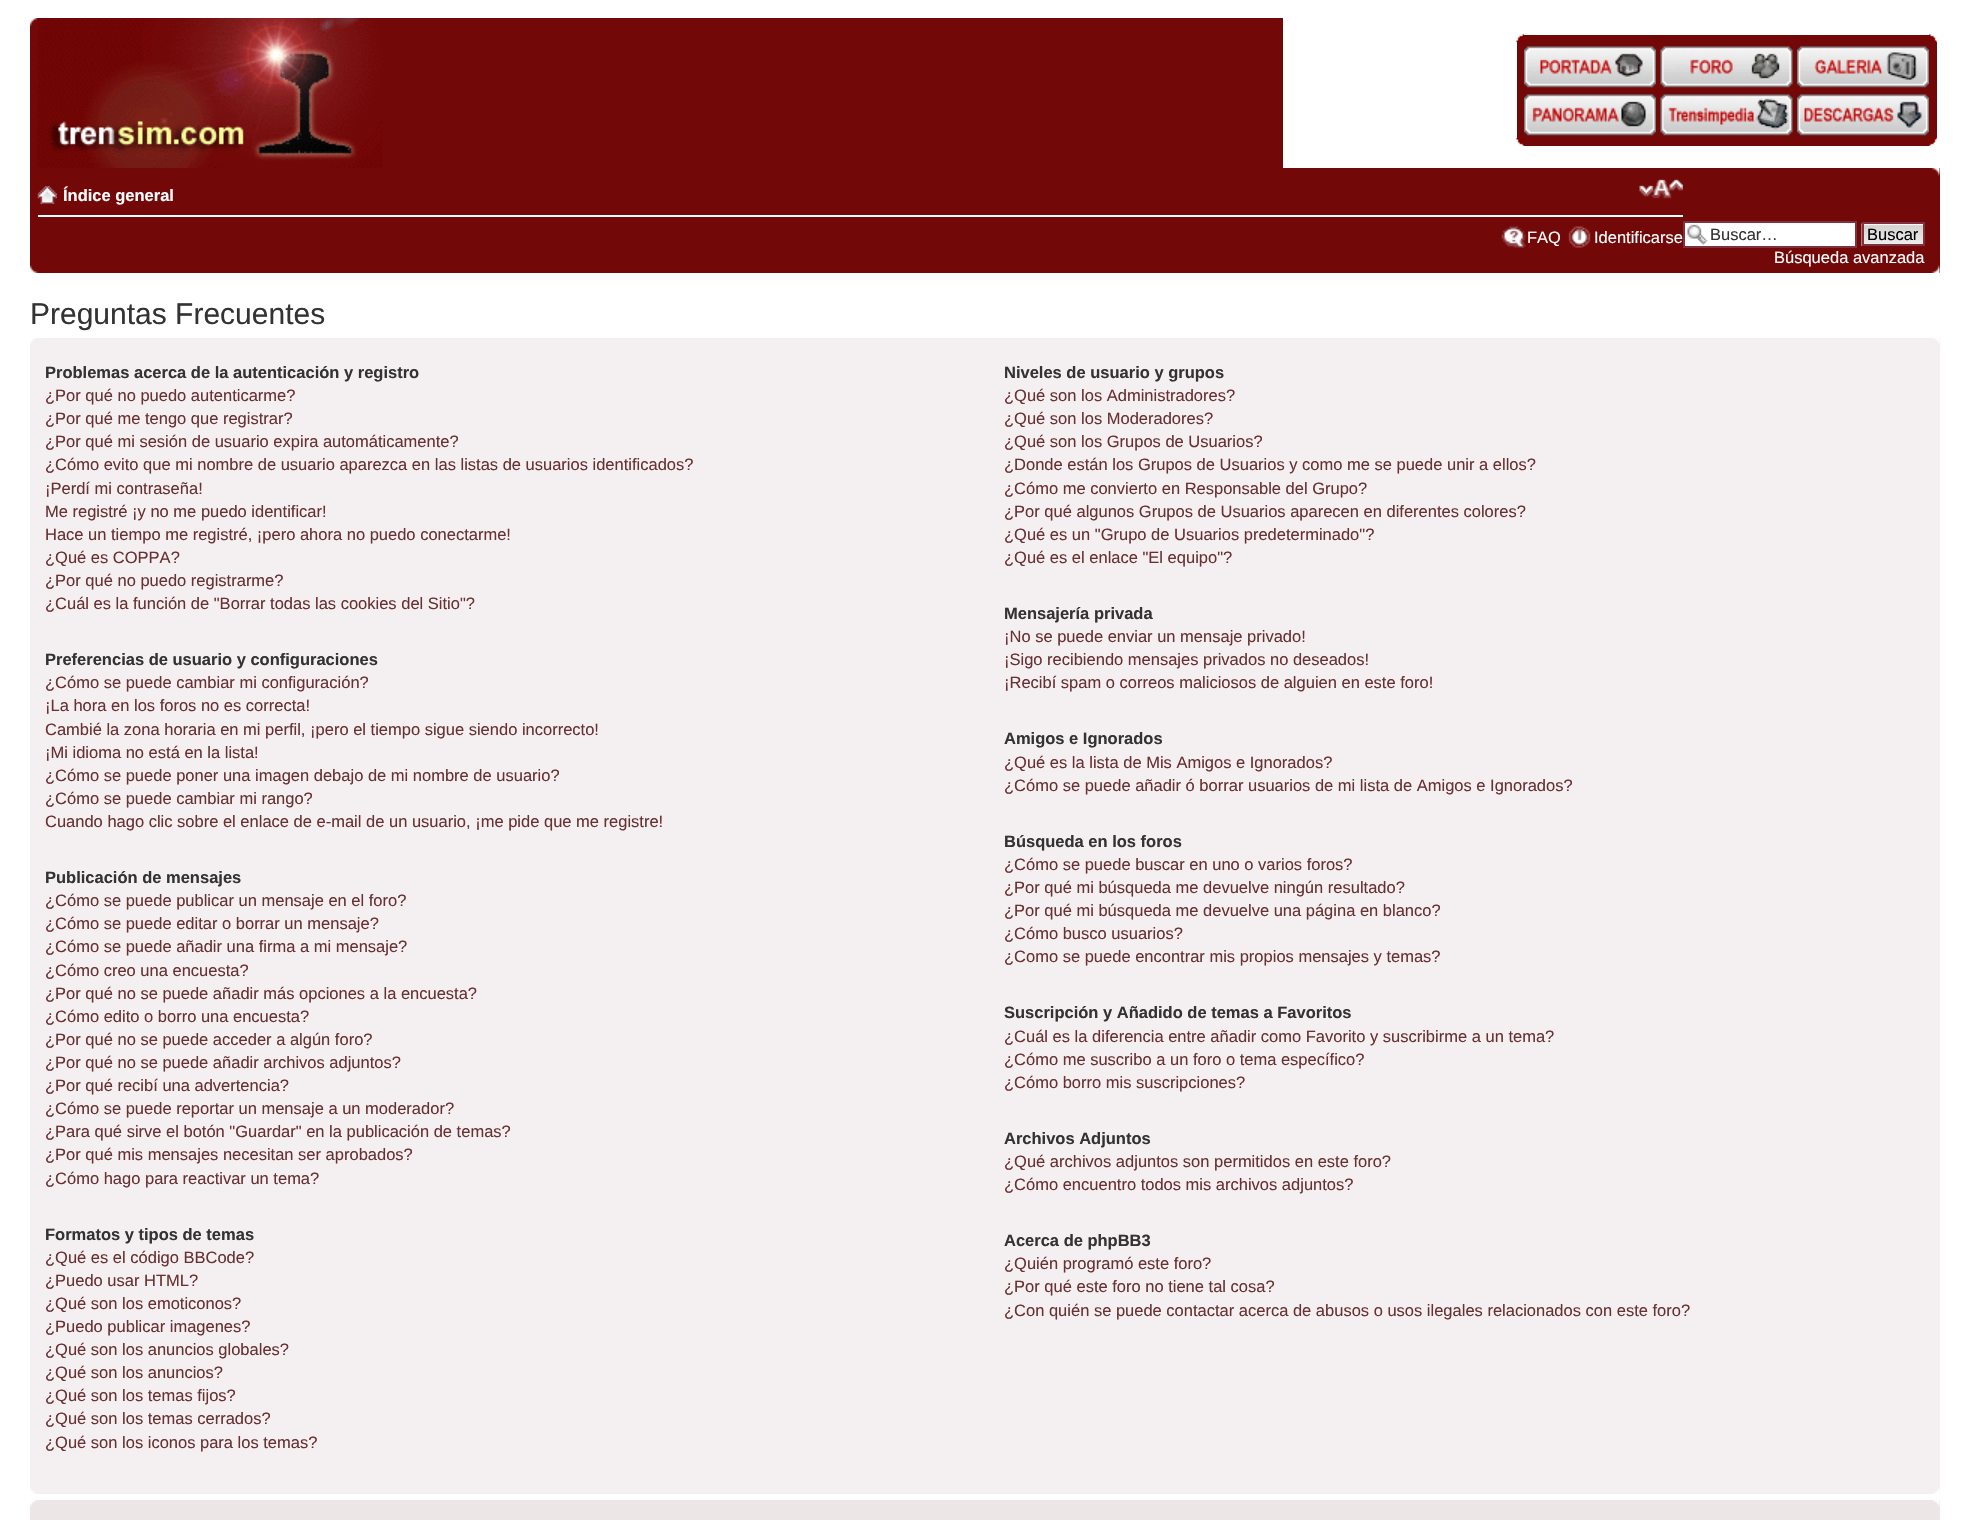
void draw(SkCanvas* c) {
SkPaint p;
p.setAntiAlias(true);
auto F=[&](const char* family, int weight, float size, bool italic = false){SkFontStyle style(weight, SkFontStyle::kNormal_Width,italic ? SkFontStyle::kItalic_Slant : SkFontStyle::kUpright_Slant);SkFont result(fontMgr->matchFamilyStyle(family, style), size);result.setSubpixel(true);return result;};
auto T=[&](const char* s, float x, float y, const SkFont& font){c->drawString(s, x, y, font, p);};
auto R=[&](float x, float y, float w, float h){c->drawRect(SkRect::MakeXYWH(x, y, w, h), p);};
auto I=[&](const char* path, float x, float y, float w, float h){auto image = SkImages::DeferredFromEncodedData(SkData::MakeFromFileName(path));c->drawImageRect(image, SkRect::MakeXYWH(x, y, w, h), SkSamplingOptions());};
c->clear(0xffffffff);
p.setColor(0xff730808);
R(30,18,1253,150);
I("1.png",30,18,8,8);
I("2.png",37,18,346,150);
I("3.png",1516,34,8,8);
R(1524,35,405,7);
I("4.png",1929,34,8,8);
R(1517,42,420,96);
I("5.png",1524,46,132,42);
I("6.png",1660,46,133,42);
I("7.png",1797,46,132,42);
I("8.png",1524,94,132,42);
I("9.png",1660,94,133,42);
I("10.png",1797,94,132,42);
I("11.png",1516,138,8,8);
R(1524,138,405,8);
I("12.png",1929,138,8,8);
R(30,168,1910,105);
I("13.png",1931,168,9,8);
p.setColor(0xffffffff);
R(38,215,1645,2);
I("14.png",37,186,20,18);
auto f1 = F("Liberation Sans",700,16.5);
T("Índice general",63,201,f1);
I("15.png",1639,179,44,20);
I("16.png",1501,226,25,22);
auto f2 = F("Liberation Sans",400,16.5);
T("FAQ",1527,243,f2);
I("17.png",1568,226,23,22);
T("Identificarse",1594,243,f2);
R(1685,223,170,23);
I("18.png",1687,224,21,21);
p.setStroke(true);
p.setStrokeWidth(2);
p.setColor(0xff7f313e);
c->drawRect(SkRect::MakeXYWH(1684,222,172,25),p);
p.setStroke(false);
p.setColor(0xff333333);
T("Buscar…",1710,240,f2);
I("19.png",1861,223,62,23);
p.setStroke(true);
p.setColor(0xff7f313e);
c->drawRect(SkRect::MakeXYWH(1863,223,61,22),p);
p.setStroke(false);
p.setColor(0xff000000);
T("Buscar",1867,240,f2);
p.setColor(0xffffffff);
T("Búsqueda avanzada",1774,263,f2);
I("20.png",30,265,8,8);
I("21.png",1931,265,9,8);
auto f3 = F("Liberation Sans",400,30);
p.setColor(0xff333333);
T("Preguntas Frecuentes",30,324,f3);
p.setColor(0xfff4eff0);
R(30,338,1910,1156);
I("22.png",30,338,7,6);
I("23.png",1933,338,7,6);
p.setColor(0xff333333);
T("Problemas acerca de la autenticación y registro",45,378,f1);
p.setColor(0xff683133);
T("¿Por qué no puedo autenticarme?",45,401,f2);
T("¿Por qué me tengo que registrar?",45,424,f2);
T("¿Por qué mi sesión de usuario expira automáticamente?",45,447,f2);
T("¿Cómo evito que mi nombre de usuario aparezca en las listas de usuarios identificados?",45,470,f2);
T("¡Perdí mi contraseña!",45,494,f2);
T("Me registré ¡y no me puedo identificar!",45,517,f2);
T("Hace un tiempo me registré, ¡pero ahora no puedo conectarme!",45,540,f2);
T("¿Qué es COPPA?",45,563,f2);
T("¿Por qué no puedo registrarme?",45,586,f2);
T("¿Cuál es la función de \"Borrar todas las cookies del Sitio\"?",45,609,f2);
p.setColor(0xff333333);
T("Preferencias de usuario y configuraciones",45,665,f1);
p.setColor(0xff683133);
T("¿Cómo se puede cambiar mi configuración?",45,688,f2);
T("¡La hora en los foros no es correcta!",45,711,f2);
T("Cambié la zona horaria en mi perfil, ¡pero el tiempo sigue siendo incorrecto!",45,735,f2);
T("¡Mi idioma no está en la lista!",45,758,f2);
T("¿Cómo se puede poner una imagen debajo de mi nombre de usuario?",45,781,f2);
T("¿Cómo se puede cambiar mi rango?",45,804,f2);
T("Cuando hago clic sobre el enlace de e-mail de un usuario, ¡me pide que me registre!",45,827,f2);
p.setColor(0xff333333);
T("Publicación de mensajes",45,883,f1);
p.setColor(0xff683133);
T("¿Cómo se puede publicar un mensaje en el foro?",45,906,f2);
T("¿Cómo se puede editar o borrar un mensaje?",45,929,f2);
T("¿Cómo se puede añadir una firma a mi mensaje?",45,952,f2);
T("¿Cómo creo una encuesta?",45,976,f2);
T("¿Por qué no se puede añadir más opciones a la encuesta?",45,999,f2);
T("¿Cómo edito o borro una encuesta?",45,1022,f2);
T("¿Por qué no se puede acceder a algún foro?",45,1045,f2);
T("¿Por qué no se puede añadir archivos adjuntos?",45,1068,f2);
T("¿Por qué recibí una advertencia?",45,1091,f2);
T("¿Cómo se puede reportar un mensaje a un moderador?",45,1114,f2);
T("¿Para qué sirve el botón \"Guardar\" en la publicación de temas?",45,1137,f2);
T("¿Por qué mis mensajes necesitan ser aprobados?",45,1160,f2);
T("¿Cómo hago para reactivar un tema?",45,1184,f2);
p.setColor(0xff333333);
T("Formatos y tipos de temas",45,1240,f1);
p.setColor(0xff683133);
T("¿Qué es el código BBCode?",45,1263,f2);
T("¿Puedo usar HTML?",45,1286,f2);
T("¿Qué son los emoticonos?",45,1309,f2);
T("¿Puedo publicar imagenes?",45,1332,f2);
T("¿Qué son los anuncios globales?",45,1355,f2);
T("¿Qué son los anuncios?",45,1378,f2);
T("¿Qué son los temas fijos?",45,1401,f2);
T("¿Qué son los temas cerrados?",45,1424,f2);
T("¿Qué son los iconos para los temas?",45,1448,f2);
p.setColor(0xff333333);
T("Niveles de usuario y grupos",1004,378,f1);
p.setColor(0xff683133);
T("¿Qué son los Administradores?",1004,401,f2);
T("¿Qué son los Moderadores?",1004,424,f2);
T("¿Qué son los Grupos de Usuarios?",1004,447,f2);
T("¿Donde están los Grupos de Usuarios y como me se puede unir a ellos?",1004,470,f2);
T("¿Cómo me convierto en Responsable del Grupo?",1004,494,f2);
T("¿Por qué algunos Grupos de Usuarios aparecen en diferentes colores?",1004,517,f2);
T("¿Qué es un \"Grupo de Usuarios predeterminado\"?",1004,540,f2);
T("¿Qué es el enlace \"El equipo\"?",1004,563,f2);
p.setColor(0xff333333);
T("Mensajería privada",1004,619,f1);
p.setColor(0xff683133);
T("¡No se puede enviar un mensaje privado!",1004,642,f2);
T("¡Sigo recibiendo mensajes privados no deseados!",1004,665,f2);
T("¡Recibí spam o correos maliciosos de alguien en este foro!",1004,688,f2);
p.setColor(0xff333333);
T("Amigos e Ignorados",1004,744,f1);
p.setColor(0xff683133);
T("¿Qué es la lista de Mis Amigos e Ignorados?",1004,768,f2);
T("¿Cómo se puede añadir ó borrar usuarios de mi lista de Amigos e Ignorados?",1004,791,f2);
p.setColor(0xff333333);
T("Búsqueda en los foros",1004,847,f1);
p.setColor(0xff683133);
T("¿Cómo se puede buscar en uno o varios foros?",1004,870,f2);
T("¿Por qué mi búsqueda me devuelve ningún resultado?",1004,893,f2);
T("¿Por qué mi búsqueda me devuelve una página en blanco?",1004,916,f2);
T("¿Cómo busco usuarios?",1004,939,f2);
T("¿Como se puede encontrar mis propios mensajes y temas?",1004,962,f2);
p.setColor(0xff333333);
T("Suscripción y Añadido de temas a Favoritos",1004,1018,f1);
p.setColor(0xff683133);
T("¿Cuál es la diferencia entre añadir como Favorito y suscribirme a un tema?",1004,1042,f2);
T("¿Cómo me suscribo a un foro o tema específico?",1004,1065,f2);
T("¿Cómo borro mis suscripciones?",1004,1088,f2);
p.setColor(0xff333333);
T("Archivos Adjuntos",1004,1144,f1);
p.setColor(0xff683133);
T("¿Qué archivos adjuntos son permitidos en este foro?",1004,1167,f2);
T("¿Cómo encuentro todos mis archivos adjuntos?",1004,1190,f2);
p.setColor(0xff333333);
T("Acerca de phpBB3",1004,1246,f1);
p.setColor(0xff683133);
T("¿Quién programó este foro?",1004,1269,f2);
T("¿Por qué este foro no tiene tal cosa?",1004,1292,f2);
T("¿Con quién se puede contactar acerca de abusos o usos ilegales relacionados con este foro?",1004,1316,f2);
I("24.png",30,1487,7,7);
I("25.png",1933,1488,7,6);
p.setColor(0xffede6e6);
R(30,1500,1910,20);
I("26.png",30,1500,7,7);
I("27.png",1932,1500,8,7);
}
